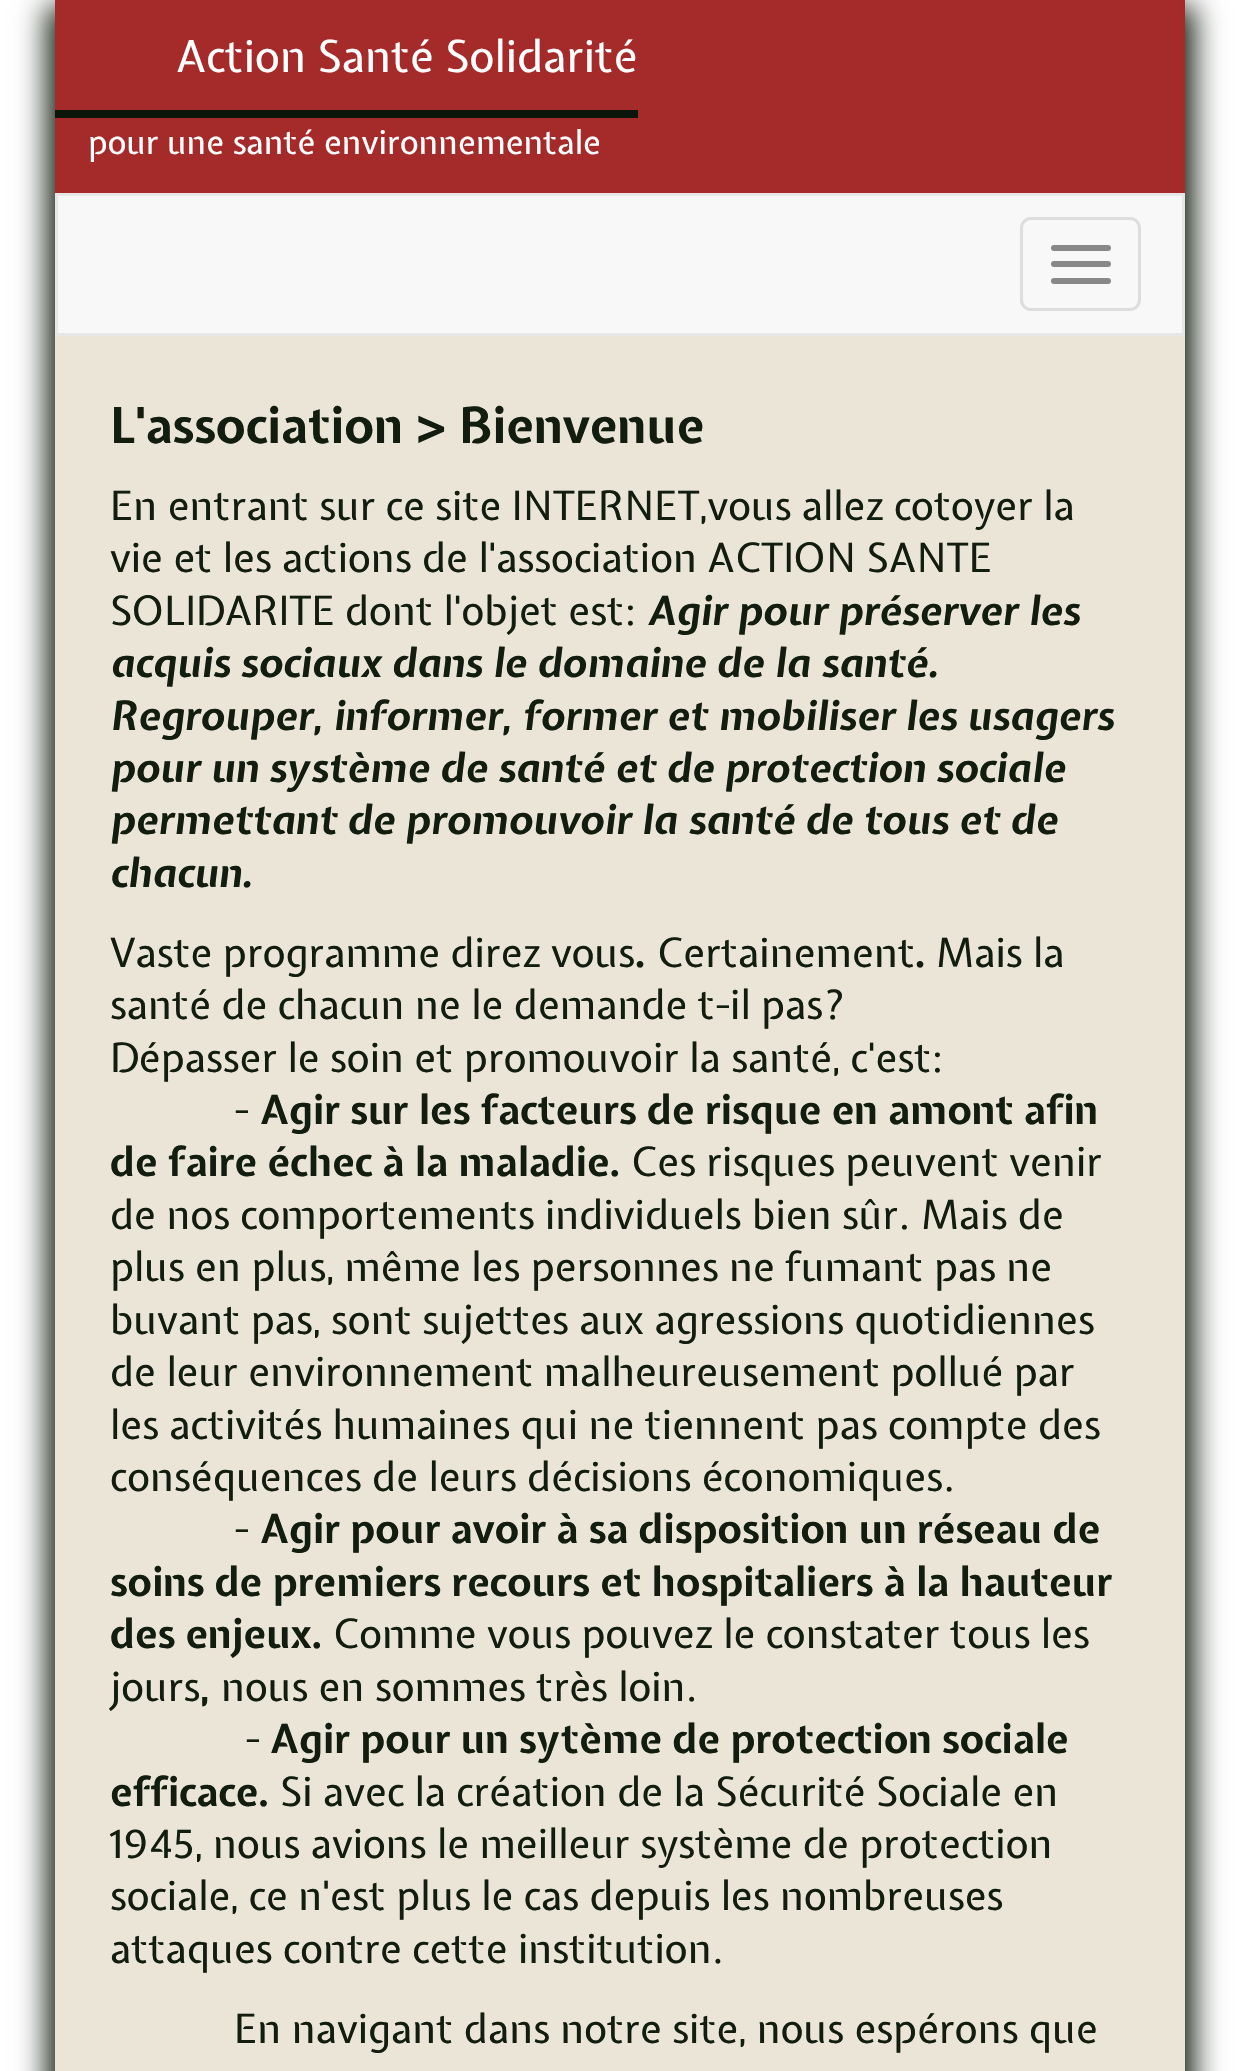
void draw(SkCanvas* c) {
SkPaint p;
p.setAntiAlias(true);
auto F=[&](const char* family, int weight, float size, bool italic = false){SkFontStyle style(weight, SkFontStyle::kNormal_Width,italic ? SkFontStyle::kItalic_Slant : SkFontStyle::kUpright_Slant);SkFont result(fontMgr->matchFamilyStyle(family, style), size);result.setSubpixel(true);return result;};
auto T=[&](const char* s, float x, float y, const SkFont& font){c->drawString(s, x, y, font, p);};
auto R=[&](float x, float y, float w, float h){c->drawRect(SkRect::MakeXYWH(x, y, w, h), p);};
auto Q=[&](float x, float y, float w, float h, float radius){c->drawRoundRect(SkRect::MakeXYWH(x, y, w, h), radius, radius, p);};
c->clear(0xffffffff);
p.setColor(0xff121d0f);
p.setMaskFilter(SkMaskFilter::MakeBlur(kNormal_SkBlurStyle, 14));
c->drawRect(SkRect::MakeXYWH(47,6,1147,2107),p);
p.setMaskFilter(nullptr);
p.setColor(0xffa52a2a);
R(55,0,1130,193);
auto f1 = F("Expletus Sans",400,44);
p.setColor(0xffffffff);
T("Action Santé Solidarité",176,72,f1);
p.setColor(0xff0c150a);
R(55,110,583,8);
auto f2 = F("Expletus Sans",400,33);
p.setColor(0xffffffff);
T("pour une santé environnementale",88,154,f2);
p.setColor(0xfff8f8f8);
c->drawRect(SkRect::MakeXYWH(56.5,194.5,1127,140),p);
p.setStroke(true);
p.setStrokeWidth(3);
p.setColor(0xffe7e7e7);
c->drawRect(SkRect::MakeXYWH(56.5,194.5,1127,140),p);
p.setColor(0xffdddddd);
c->drawRoundRect(SkRect::MakeXYWH(1021.5,218.5,118,91),9.5,9.5,p);
p.setStroke(false);
p.setColor(0xff888888);
Q(1051,245,60,6,3);
Q(1051,261,60,6,3);
Q(1051,278,60,6,3);
p.setColor(0xffeae5d7);
R(55,336,1130,1735);
auto f3 = F("Expletus Sans",700,49.5);
p.setColor(0xff121d0f);
T("L'association > Bienvenue",110,443,f3);
auto f4 = F("Expletus Sans",400,40.3);
T("En entrant sur ce site INTERNET,vous allez cotoyer la",110,520,f4);
T("vie et les actions de l'association ACTION SANTE",110,572,f4);
T("SOLIDARITE dont l'objet est:",110,625,f4);
auto f5 = F("Expletus Sans",700,40.3,true);
T("Agir pour préserver les",647,625,f5);
T("acquis sociaux dans le domaine de la",110,677,f5);
T("santé.",821,677,f5);
T("Regrouper, informer, former et mobiliser les usagers",110,730,f5);
T("pour un système de santé et de protection sociale",110,782,f5);
T("permettant de promouvoir la",110,834,f5);
T("santé de tous et de",688,834,f5);
T("chacun.",110,887,f5);
T("Vaste programme direz vous",110,967,f4);
auto f6 = F("Expletus Sans",700,40.3);
T(".",635,967,f6);
T("Certainement",657,967,f4);
T(".",915,967,f6);
T("Mais la",936,967,f4);
T("santé de chacun ne le demande t-il pas?",110,1019,f4);
T("Dépasser le soin et promouvoir la santé, c'est:",110,1072,f4);
T("-",234,1124,f4);
T("Agir sur les facteurs de risque en amont afin",260,1124,f6);
T("de faire échec à la maladie.",110,1176,f6);
T("Ces risques peuvent venir",631,1176,f4);
T("de nos comportements individuels bien sûr. Mais de",110,1229,f4);
T("plus en plus, même les personnes ne fumant pas ne",110,1281,f4);
T("buvant pas, sont sujettes aux agressions quotidiennes",110,1334,f4);
T("de leur environnement malheureusement pollué par",110,1386,f4);
T("les activités humaines qui ne tiennent pas compte des",110,1439,f4);
T("conséquences de leurs décisions économiques.",110,1491,f4);
T("-",234,1543,f4);
T("Agir pour avoir à sa disposition un réseau de",260,1543,f6);
T("soins de premiers recours et hospitaliers à la hauteur",110,1596,f6);
T("des enjeux.",110,1648,f6);
T("Comme vous pouvez le constater tous les",333,1648,f4);
T("jours",110,1701,f4);
T(",",200,1701,f6);
T("nous en sommes très loin.",221,1701,f4);
T("-",245,1753,f4);
T("Agir pour un sytème de protection sociale",270,1753,f6);
T("efficace.",110,1806,f6);
T("Si avec la création de la Sécurité Sociale en",280,1806,f4);
T("1945, nous avions le meilleur système de protection",110,1858,f4);
T("sociale, ce n'est plus le cas depuis les nombreuses",110,1910,f4);
T("attaques contre cette institution.",110,1963,f4);
T("En navigant dans notre site, nous espérons que",234,2043,f4);
}
